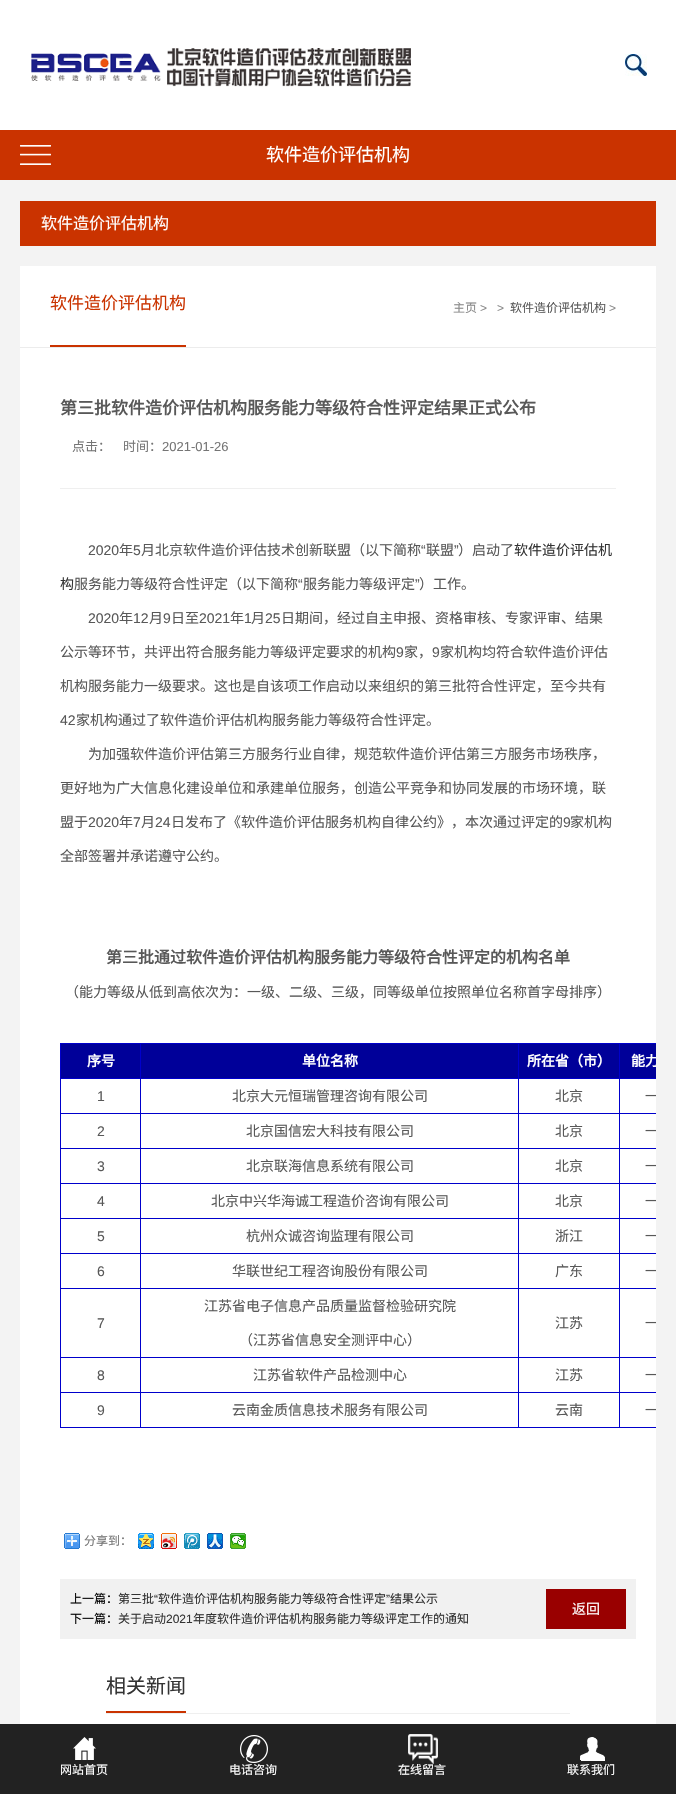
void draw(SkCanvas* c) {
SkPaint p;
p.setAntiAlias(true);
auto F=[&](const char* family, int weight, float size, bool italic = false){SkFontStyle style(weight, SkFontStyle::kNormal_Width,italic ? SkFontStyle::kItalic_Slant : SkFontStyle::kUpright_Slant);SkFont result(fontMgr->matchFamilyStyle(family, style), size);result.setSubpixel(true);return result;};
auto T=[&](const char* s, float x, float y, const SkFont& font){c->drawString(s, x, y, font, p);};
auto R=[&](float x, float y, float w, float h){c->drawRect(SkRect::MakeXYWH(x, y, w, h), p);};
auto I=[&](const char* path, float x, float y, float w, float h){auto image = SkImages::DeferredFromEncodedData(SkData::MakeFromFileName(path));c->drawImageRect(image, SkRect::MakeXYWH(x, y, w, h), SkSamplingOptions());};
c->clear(0xfff3f3f3);
p.setColor(0xffffffff);
R(0,0,676,130);
I("1.png",31,48,380,39);
I("2.png",625,54,22,22);
p.setColor(0xffca3300);
R(0,130,676,50);
I("3.png",20,145,31,20);
auto f1 = F("Noto Sans CJK SC",400,18);
p.setColor(0xffffffff);
T("软件造价评估机构",266,161,f1);
p.setColor(0xffca3300);
R(20,201,636,45);
auto f2 = F("Noto Sans CJK SC",400,16);
p.setColor(0xffffffff);
T("软件造价评估机构",41,229,f2);
R(20,266,636,1458);
p.setColor(0xffececec);
R(20,347,636,1);
p.setColor(0xffca3300);
R(50,345,136,2);
auto f3 = F("Noto Sans CJK SC",400,17);
T("软件造价评估机构",50,309,f3);
auto f4 = F("Noto Sans CJK SC",400,12);
p.setColor(0xff898989);
T("主页",453,312,f4);
auto f5 = F("Liberation Sans",400,12);
T(">",480,312,f5);
T(">",497,312,f5);
p.setColor(0xff585858);
T("软件造价评估机构",510,312,f4);
p.setColor(0xff898989);
T(">",609,312,f5);
p.setColor(0xffefefef);
R(60,488,556,1);
auto f6 = F("Noto Sans CJK SC",700,17);
p.setColor(0xff585858);
T("第三批软件造价评估机构服务能力等级符合性评定结果正式公布",60,414,f6);
auto f7 = F("Noto Sans CJK SC",400,13);
p.setColor(0xff757575);
T("点击：",72,451,f7);
T("时间：",123,451,f7);
auto f8 = F("Liberation Sans",400,13);
T("2021-01-26",162,451,f8);
auto f9 = F("Liberation Sans",400,14);
p.setColor(0xff585858);
T("2020",88,555,f9);
auto f10 = F("Noto Sans CJK SC",400,14);
T("年",119,555,f10);
T("5",133,555,f9);
T("月北京软件造价评估技术创新联盟（以下简称",141,555,f10);
T("“",421,555,f9);
T("联盟",426,555,f10);
T("”",454,555,f9);
T("）启动了",458,555,f10);
p.setColor(0xff333333);
T("软件造价评估机",514,555,f10);
T("构",60,589,f10);
p.setColor(0xff585858);
T("服务能力等级符合性评定（以下简称",74,589,f10);
T("“",298,589,f9);
T("服务能力等级评定",303,589,f10);
T("”",415,589,f9);
T("）工作。",419,589,f10);
T("2020",88,623,f9);
T("年",119,623,f10);
T("12",133,623,f9);
T("月",149,623,f10);
T("9",163,623,f9);
T("日至",171,623,f10);
T("2021",199,623,f9);
T("年",230,623,f10);
T("1",244,623,f9);
T("月",251,623,f10);
T("25",265,623,f9);
T("日期间，经过自主申报、资格审核、专家评审、结果",281,623,f10);
T("公示等环节，共评出符合服务能力等级评定要求的机构",60,657,f10);
T("9",396,657,f9);
T("家，",404,657,f10);
T("9",432,657,f9);
T("家机构均符合软件造价评估",440,657,f10);
T("机构服务能力一级要求。这也是自该项工作启动以来组织的第三批符合性评定，至今共有",60,691,f10);
T("42",60,725,f9);
T("家机构通过了软件造价评估机构服务能力等级符合性评定。",76,725,f10);
T("为加强软件造价评估第三方服务行业自律，规范软件造价评估第三方服务市场秩序，",88,759,f10);
T("更好地为广大信息化建设单位和承建单位服务，创造公平竞争和协同发展的市场环境，联",60,793,f10);
T("盟于",60,827,f10);
T("2020",88,827,f9);
T("年",119,827,f10);
T("7",133,827,f9);
T("月",141,827,f10);
T("24",155,827,f9);
T("日发布了《软件造价评估服务机构自律公约》，本次通过评定的",171,827,f10);
T("9",563,827,f9);
T("家机构",570,827,f10);
T("全部签署并承诺遵守公约。",60,861,f10);
auto f11 = F("Noto Sans CJK SC",700,16);
T("第三批通过软件造价评估机构服务能力等级符合性评定的机构名单",106,963,f11);
T("（能力等级从低到高依次为：一级、二级、三级，同等级单位按照单位名称首字母排序）",65,997,f10);
p.setColor(0xff0000cc);
R(60,1043,596,1);
R(60,1427,596,1);
R(60,1043,1,385);
p.setColor(0xff000099);
R(61,1044,79,34);
auto f12 = F("Noto Sans CJK SC",700,14);
p.setColor(0xffffffff);
T("序号",87,1066,f12);
p.setColor(0xff000099);
R(141,1044,377,34);
p.setColor(0xff0000cc);
R(619,1078,37,1);
R(619,1113,37,1);
R(619,1148,37,1);
R(619,1183,37,1);
R(619,1218,37,1);
R(619,1253,37,1);
R(619,1288,37,1);
R(619,1357,37,1);
R(619,1392,37,1);
R(619,1392,1,36);
R(518,1392,102,1);
R(619,1357,1,36);
R(518,1357,102,1);
R(619,1288,1,70);
R(518,1288,102,1);
R(619,1253,1,36);
R(518,1253,102,1);
R(619,1218,1,36);
R(518,1218,102,1);
R(619,1183,1,36);
R(518,1183,102,1);
R(619,1148,1,36);
R(518,1148,102,1);
R(619,1113,1,36);
R(518,1113,102,1);
R(619,1078,1,36);
R(518,1078,102,1);
R(518,1392,1,36);
R(140,1392,379,1);
R(518,1357,1,36);
R(140,1357,379,1);
R(518,1288,1,70);
R(140,1288,379,1);
R(518,1253,1,36);
R(140,1253,379,1);
R(518,1218,1,36);
R(140,1218,379,1);
R(518,1183,1,36);
R(140,1183,379,1);
R(518,1148,1,36);
R(140,1148,379,1);
R(518,1113,1,36);
R(140,1113,379,1);
R(518,1078,1,36);
R(140,1078,379,1);
R(140,1392,1,36);
R(60,1392,81,1);
R(140,1357,1,36);
R(60,1357,81,1);
R(140,1288,1,70);
R(60,1288,81,1);
R(140,1253,1,36);
R(60,1253,81,1);
R(140,1218,1,36);
R(60,1218,81,1);
R(140,1183,1,36);
R(60,1183,81,1);
R(140,1148,1,36);
R(60,1148,81,1);
R(140,1113,1,36);
R(60,1113,81,1);
R(140,1078,1,36);
R(60,1078,81,1);
R(140,1043,1,36);
p.setColor(0xffffffff);
T("单位名称",302,1066,f12);
p.setColor(0xff000099);
R(519,1044,100,34);
p.setColor(0xff0000cc);
R(518,1043,1,36);
p.setColor(0xffffffff);
T("所在省（市）",527,1066,f12);
p.setColor(0xff000099);
R(620,1044,36,34);
p.setColor(0xff0000cc);
R(619,1043,1,36);
c->save();
c->clipRect(SkRect::MakeXYWH(20,348,636,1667));
p.setColor(0xffffffff);
T("能力",631,1066,f12);
c->restore();
p.setColor(0xff585858);
T("1",97,1101,f9);
T("北京大元恒瑞管理咨询有限公司",232,1101,f10);
T("北京",555,1101,f10);
c->save();
c->clipRect(SkRect::MakeXYWH(20,348,636,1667));
T("一",645,1101,f10);
c->restore();
T("2",97,1136,f9);
T("北京国信宏大科技有限公司",246,1136,f10);
T("北京",555,1136,f10);
c->save();
c->clipRect(SkRect::MakeXYWH(20,348,636,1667));
T("一",645,1136,f10);
c->restore();
T("3",97,1171,f9);
T("北京联海信息系统有限公司",246,1171,f10);
T("北京",555,1171,f10);
c->save();
c->clipRect(SkRect::MakeXYWH(20,348,636,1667));
T("一",645,1171,f10);
c->restore();
T("4",97,1206,f9);
T("北京中兴华海诚工程造价咨询有限公司",211,1206,f10);
T("北京",555,1206,f10);
c->save();
c->clipRect(SkRect::MakeXYWH(20,348,636,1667));
T("一",645,1206,f10);
c->restore();
T("5",97,1241,f9);
T("杭州众诚咨询监理有限公司",246,1241,f10);
T("浙江",555,1241,f10);
c->save();
c->clipRect(SkRect::MakeXYWH(20,348,636,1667));
T("一",645,1241,f10);
c->restore();
T("6",97,1276,f9);
T("华联世纪工程咨询股份有限公司",232,1276,f10);
T("广东",555,1276,f10);
c->save();
c->clipRect(SkRect::MakeXYWH(20,348,636,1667));
T("一",645,1276,f10);
c->restore();
T("7",97,1328,f9);
T("江苏省电子信息产品质量监督检验研究院",204,1311,f10);
T("（江苏省信息安全测评中心）",239,1345,f10);
T("江苏",555,1328,f10);
c->save();
c->clipRect(SkRect::MakeXYWH(20,348,636,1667));
T("一",645,1328,f10);
c->restore();
T("8",97,1380,f9);
T("江苏省软件产品检测中心",253,1380,f10);
T("江苏",555,1380,f10);
c->save();
c->clipRect(SkRect::MakeXYWH(20,348,636,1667));
T("一",645,1380,f10);
c->restore();
T("9",97,1415,f9);
T("云南金质信息技术服务有限公司",232,1415,f10);
T("云南",555,1415,f10);
c->save();
c->clipRect(SkRect::MakeXYWH(20,348,636,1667));
T("一",645,1415,f10);
c->restore();
I("4.png",64,1533,16,16);
p.setColor(0xff757575);
T("分享到：",84,1545,f4);
I("5.png",138,1533,16,16);
I("6.png",161,1533,16,16);
I("7.png",184,1533,16,16);
I("8.png",207,1533,16,16);
I("9.png",230,1533,16,16);
p.setColor(0xfff1f1f1);
R(60,1579,576,60);
p.setColor(0xff000000);
T("上一篇：",70,1603,f4);
p.setColor(0xff333333);
T("第三批",118,1603,f4);
T("“",154,1603,f5);
T("软件造价评估机构服务能力等级符合性评定",158,1603,f4);
T("”",386,1603,f5);
T("结果公示",390,1603,f4);
p.setColor(0xff000000);
T("下一篇：",70,1623,f4);
p.setColor(0xff333333);
T("关于启动",118,1623,f4);
T("2021",166,1623,f5);
T("年度软件造价评估机构服务能力等级评定工作的通知",193,1623,f4);
p.setColor(0xff990000);
R(546,1589,80,40);
p.setColor(0xffffffff);
T("返回",572,1614,f10);
p.setColor(0xffefefef);
R(106,1713,464,1);
p.setColor(0xffca3300);
R(106,1711,80,2);
auto f13 = F("Noto Sans CJK SC",400,20);
p.setColor(0xff333333);
T("相关新闻",106,1693,f13);
p.setColor(0xff222222);
R(0,1724,676,70);
I("10.png",73,1737,23,23);
p.setColor(0xffffffff);
T("网站首页",60,1774,f4);
I("11.png",240,1735,28,28);
T("电话咨询",229,1774,f4);
I("12.png",408,1734,30,30);
T("在线留言",398,1774,f4);
I("13.png",580,1737,25,24);
T("联系我们",567,1774,f4);
}
